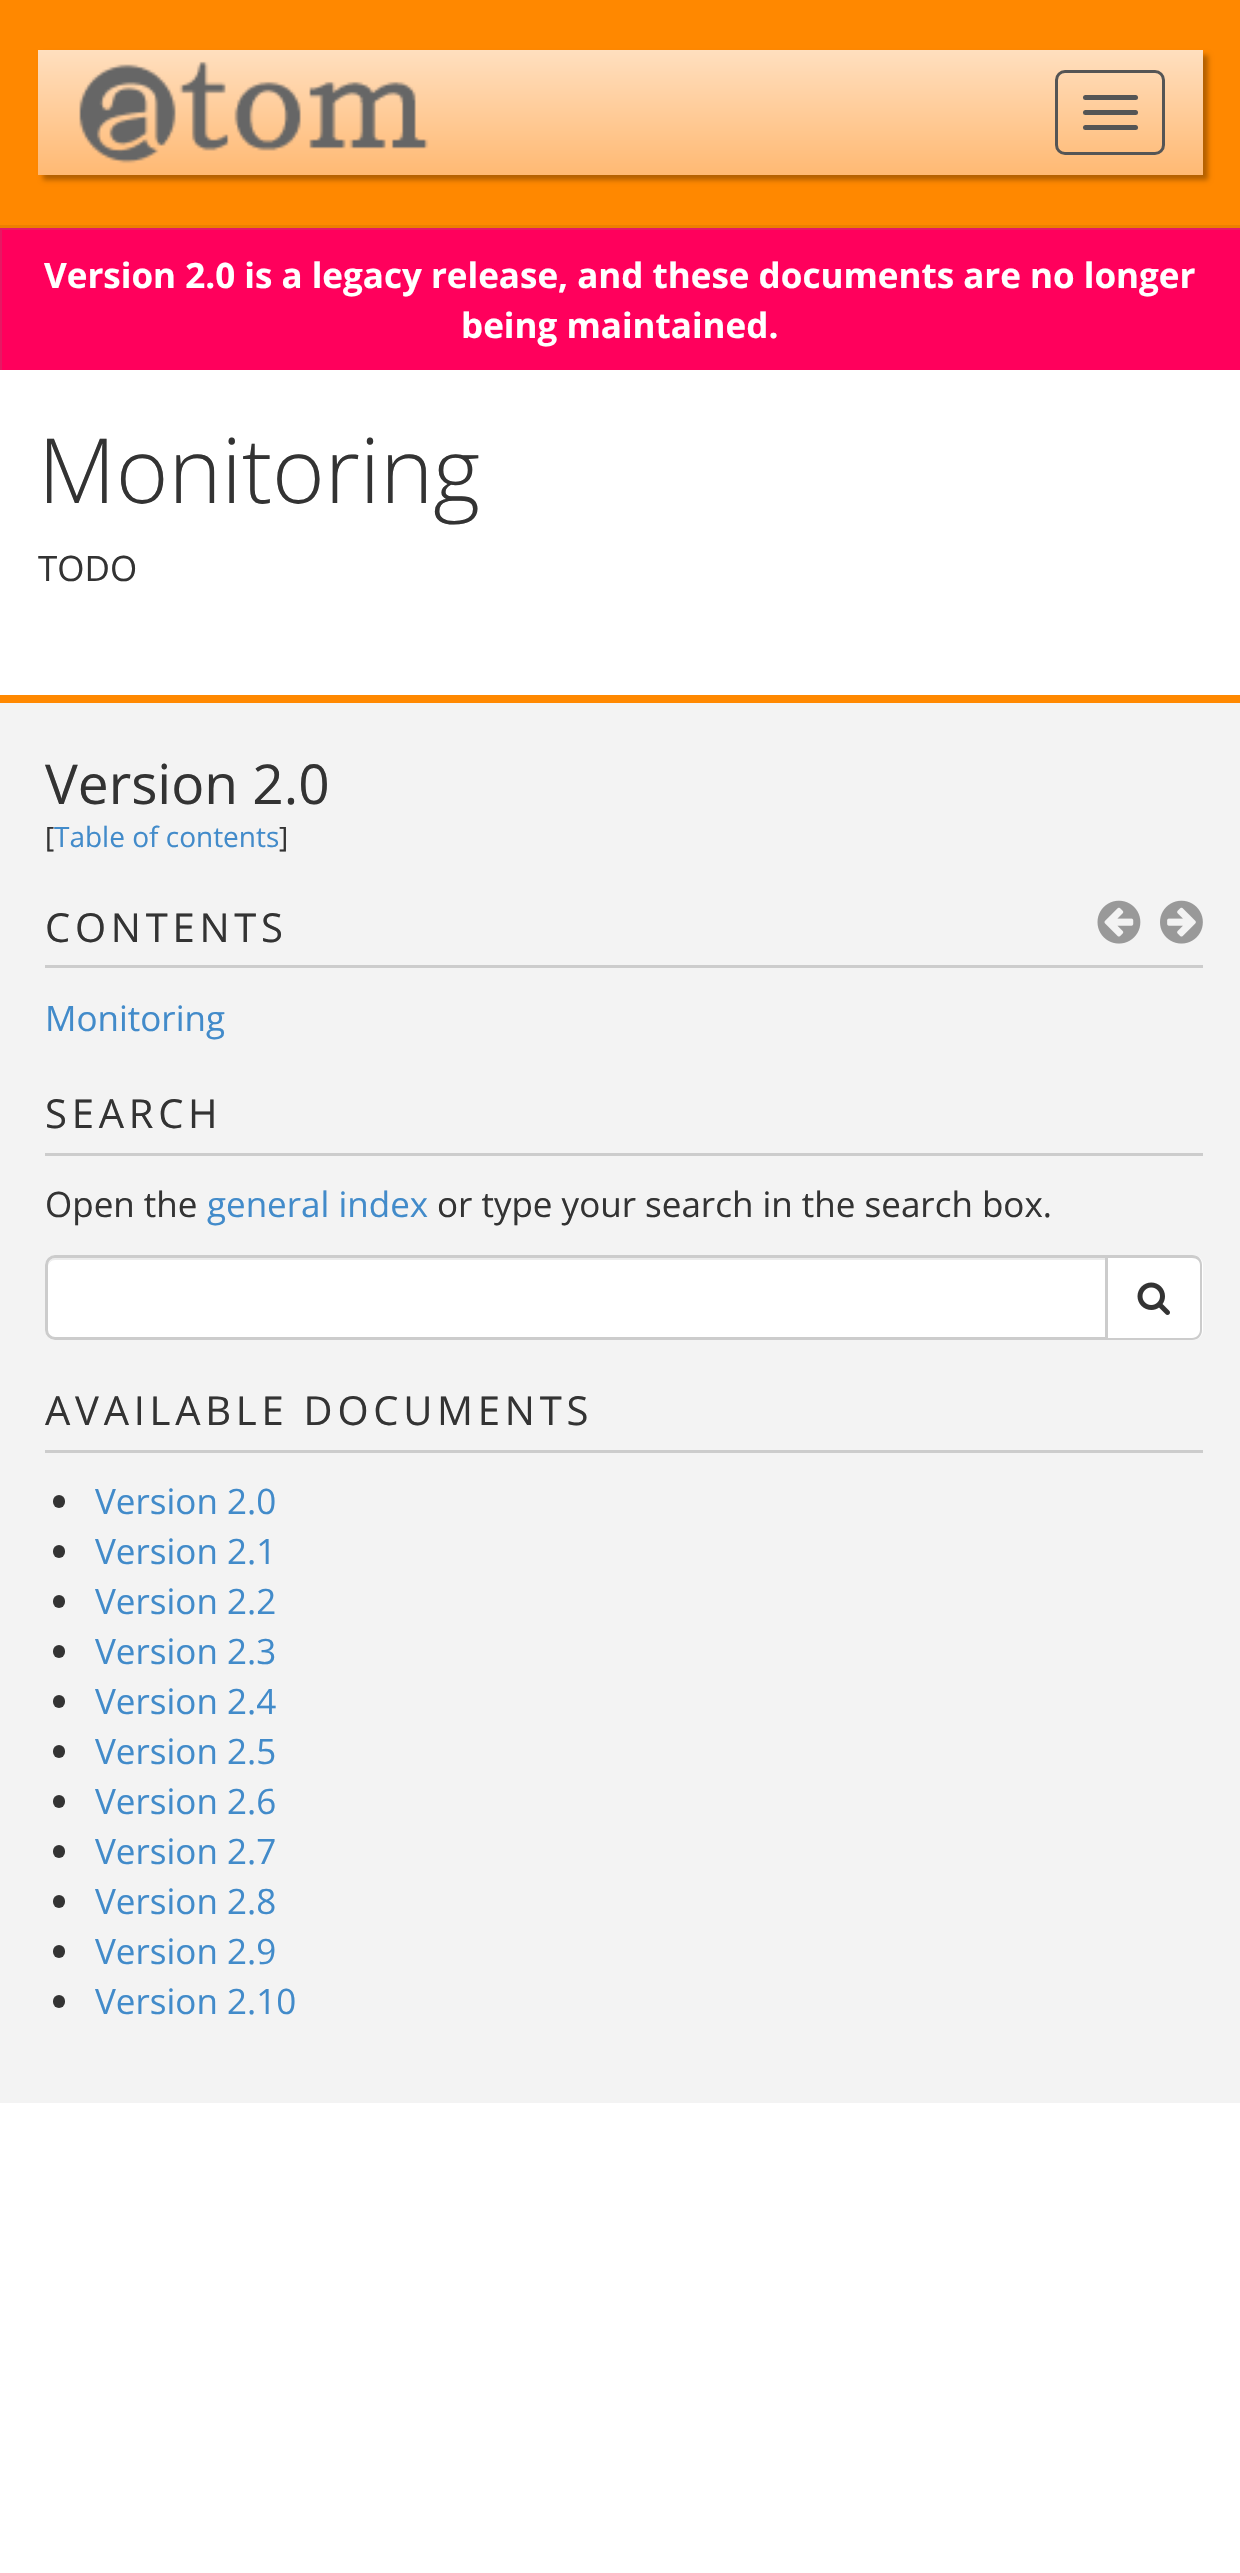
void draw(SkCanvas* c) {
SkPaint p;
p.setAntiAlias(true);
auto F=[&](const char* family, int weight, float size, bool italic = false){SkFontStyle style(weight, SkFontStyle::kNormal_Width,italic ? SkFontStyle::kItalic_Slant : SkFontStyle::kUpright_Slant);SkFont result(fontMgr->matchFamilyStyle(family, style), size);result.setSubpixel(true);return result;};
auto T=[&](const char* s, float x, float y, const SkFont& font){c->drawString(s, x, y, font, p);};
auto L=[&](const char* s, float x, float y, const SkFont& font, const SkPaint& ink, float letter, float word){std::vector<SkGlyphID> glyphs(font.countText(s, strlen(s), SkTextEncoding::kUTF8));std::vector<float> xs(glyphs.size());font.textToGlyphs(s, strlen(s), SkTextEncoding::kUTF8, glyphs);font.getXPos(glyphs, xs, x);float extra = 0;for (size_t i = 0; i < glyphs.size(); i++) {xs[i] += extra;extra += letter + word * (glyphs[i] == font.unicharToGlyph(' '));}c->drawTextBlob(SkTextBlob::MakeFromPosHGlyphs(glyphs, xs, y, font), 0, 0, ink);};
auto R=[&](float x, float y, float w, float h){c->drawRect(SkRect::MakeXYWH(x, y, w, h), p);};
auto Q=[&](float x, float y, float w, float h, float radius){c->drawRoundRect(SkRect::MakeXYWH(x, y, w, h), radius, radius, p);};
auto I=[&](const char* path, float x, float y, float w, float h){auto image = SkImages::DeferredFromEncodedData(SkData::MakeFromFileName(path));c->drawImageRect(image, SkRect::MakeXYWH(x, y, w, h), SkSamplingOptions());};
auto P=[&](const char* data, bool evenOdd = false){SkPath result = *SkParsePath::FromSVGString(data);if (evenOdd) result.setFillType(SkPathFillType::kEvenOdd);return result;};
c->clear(0xffffffff);
p.setColor(0xffff8800);
R(0,0,1240,225);
p.setColor(0x4d000000);
p.setMaskFilter(SkMaskFilter::MakeBlur(kNormal_SkBlurStyle, 2.5));
c->drawRect(SkRect::MakeXYWH(43,55,1165,125),p);
p.setMaskFilter(nullptr);
{
const SkColor colors[] = {0xffffdfbf,0xffffb973};
const float stops[] = {0,1};
const SkPoint ends[] = {{620,50}, {620,175}};
p.setShader(SkGradientShader::MakeLinear(ends, colors, stops, 2, SkTileMode::kClamp));
p.setAlpha(255);
}
R(38,50,1165,125);
I("1.png",79,61,350,103);
p.setStroke(true);
p.setStrokeWidth(3);
p.setShader(nullptr);
p.setColor(0xff555555);
c->drawRoundRect(SkRect::MakeXYWH(1056.5,71.5,107,82),8.5,8.5,p);
p.setStroke(false);
Q(1083,95,55,5,2.5);
Q(1083,110,55,5,2.5);
Q(1083,125,55,5,2.5);
p.setColor(0xffff005c);
R(2,230,1238,140);
c->save();
c->clipRect(SkRect::MakeXYWH(0,228,1240,142));
p.setColor(0xffe51963);
c->drawPath(P("M-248-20h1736v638h-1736zm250 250h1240v142h-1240z",true),p);
c->restore();
p.setColor(0xffed7f00);
R(0,225,1240,3);
auto f1 = F("Open Sans",700,35);
p.setColor(0xffffffff);
T("Version 2.0 is a legacy release, and these documents are no longer",44,288,f1);
T("being maintained.",461,338,f1);
auto f2 = F("Open Sans",300,90);
p.setColor(0xff333333);
T("Monitoring",38,503,f2);
auto f3 = F("Open Sans",400,35);
T("TODO",38,581,f3);
p.setColor(0xfff3f3f3);
R(0,703,1240,1400);
p.setColor(0xffff8800);
R(0,695,1240,8);
auto f4 = F("Open Sans",400,55);
p.setColor(0xff333333);
T("Version 2.0",45,804,f4);
auto f5 = F("Open Sans",400,28);
T("[",45,847,f5);
p.setColor(0xff428bca);
T("Table of contents",54,847,f5);
p.setColor(0xff333333);
T("]",279,847,f5);
p.setColor(0xffcccccc);
R(45,965,1158,3);
auto f6 = F("Open Sans",400,40);
p.setColor(0xff333333);
L("CONTENTS",45,942,f6,p,4.75,0);
p.setColor(0xff428bca);
T("Monitoring",45,1031,f3);
I("2.png",1097,900,44,44);
I("3.png",1160,900,43,44);
p.setColor(0xffcccccc);
R(45,1153,1158,3);
p.setColor(0xff333333);
L("SEARCH",45,1128,f6,p,4.75,0);
T("Open the",45,1217,f3);
p.setColor(0xff428bca);
T("general index",207,1217,f3);
p.setColor(0xff333333);
T("or type your search in the search box.",437,1217,f3);
p.setColor(0xffffffff);
c->drawPath(P("M55 1255h1053v85h-1053c-5.5 0-10-4.5-10-10v-65c0-5.5 4.5-10 10-10z"),p);
p.setColor(0xffececec);
c->drawPath(P("M55 1260h1050v-2h-1049c-6 0-8 5-8 10c0-5 3-8 7-8z"),p);
p.setStroke(true);
p.setColor(0xffcccccc);
c->drawPath(P("M55 1256.5h1051.5v82h-1051.5c-4.5 0-8.5-4-8.5-8.5v-65c0-4.5 4-8.5 8.5-8.5z"),p);
p.setStroke(false);
p.setColor(0xffffffff);
c->drawPath(P("M1108 1255h85c5.5 0 10 4.5 10 10v65c0 5.5-4.5 10-10 10h-85z"),p);
p.setColor(0xffcccccc);
c->drawPath(P("M1108 1255h84c6 0 10 4 10 10v65c0 6-4 10-10 10h-84zm0 3h84c5 0 8 3 8 7v65c0 4-3 8-8 8h-84z",true),p);
I("4.png",1137,1282,33,33);
R(45,1450,1158,3);
p.setColor(0xff333333);
L("AVAILABLE DOCUMENTS",45,1425,f6,p,4.75,0);
Q(53,1495,12,13,6);
p.setColor(0xff428bca);
T("Version 2.0",95,1514,f3);
p.setColor(0xff333333);
Q(53,1545,12,13,6);
p.setColor(0xff428bca);
T("Version 2.1",95,1564,f3);
p.setColor(0xff333333);
Q(53,1595,12,13,6);
p.setColor(0xff428bca);
T("Version 2.2",95,1614,f3);
p.setColor(0xff333333);
Q(53,1645,12,13,6);
p.setColor(0xff428bca);
T("Version 2.3",95,1664,f3);
p.setColor(0xff333333);
Q(53,1695,12,13,6);
p.setColor(0xff428bca);
T("Version 2.4",95,1714,f3);
p.setColor(0xff333333);
Q(53,1745,12,13,6);
p.setColor(0xff428bca);
T("Version 2.5",95,1764,f3);
p.setColor(0xff333333);
Q(53,1795,12,13,6);
p.setColor(0xff428bca);
T("Version 2.6",95,1814,f3);
p.setColor(0xff333333);
Q(53,1845,12,13,6);
p.setColor(0xff428bca);
T("Version 2.7",95,1864,f3);
p.setColor(0xff333333);
Q(53,1895,12,13,6);
p.setColor(0xff428bca);
T("Version 2.8",95,1914,f3);
p.setColor(0xff333333);
Q(53,1945,12,13,6);
p.setColor(0xff428bca);
T("Version 2.9",95,1964,f3);
p.setColor(0xff333333);
Q(53,1995,12,13,6);
p.setColor(0xff428bca);
T("Version 2.10",95,2014,f3);
}
